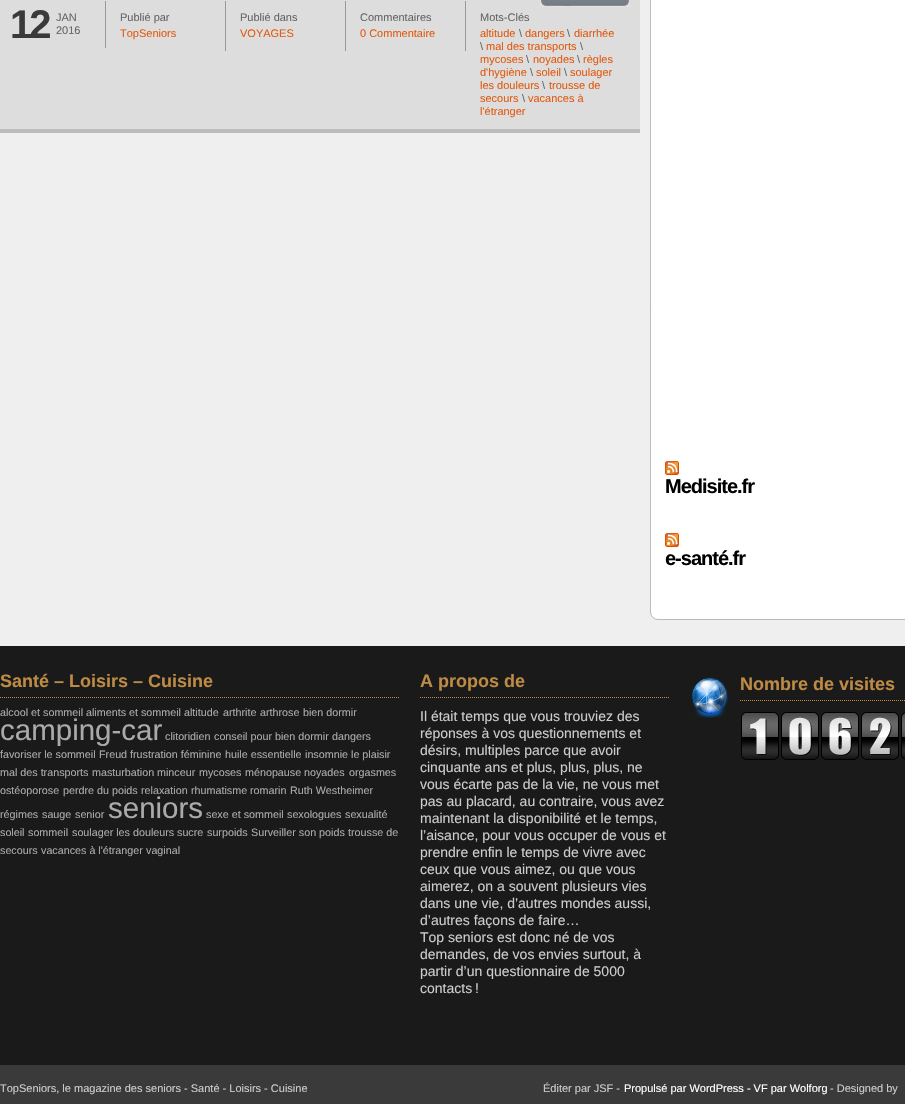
void draw(SkCanvas* c) {
SkPaint p;
p.setAntiAlias(true);
auto F=[&](const char* family, int weight, float size, bool italic = false){SkFontStyle style(weight, SkFontStyle::kNormal_Width,italic ? SkFontStyle::kItalic_Slant : SkFontStyle::kUpright_Slant);SkFont result(fontMgr->matchFamilyStyle(family, style), size);result.setSubpixel(true);return result;};
auto T=[&](const char* s, float x, float y, const SkFont& font){c->drawString(s, x, y, font, p);};
auto L=[&](const char* s, float x, float y, const SkFont& font, const SkPaint& ink, float letter, float word){std::vector<SkGlyphID> glyphs(font.countText(s, strlen(s), SkTextEncoding::kUTF8));std::vector<float> xs(glyphs.size());font.textToGlyphs(s, strlen(s), SkTextEncoding::kUTF8, glyphs);font.getXPos(glyphs, xs, x);float extra = 0;for (size_t i = 0; i < glyphs.size(); i++) {xs[i] += extra;extra += letter + word * (glyphs[i] == font.unicharToGlyph(' '));}c->drawTextBlob(SkTextBlob::MakeFromPosHGlyphs(glyphs, xs, y, font), 0, 0, ink);};
auto R=[&](float x, float y, float w, float h){c->drawRect(SkRect::MakeXYWH(x, y, w, h), p);};
auto I=[&](const char* path, float x, float y, float w, float h){auto image = SkImages::DeferredFromEncodedData(SkData::MakeFromFileName(path));c->drawImageRect(image, SkRect::MakeXYWH(x, y, w, h), SkSamplingOptions());};
auto P=[&](const char* data, bool evenOdd = false){SkPath result = *SkParsePath::FromSVGString(data);if (evenOdd) result.setFillType(SkPathFillType::kEvenOdd);return result;};
c->clear(0xffefefef);
p.setColor(0xffdddddd);
R(0,0,640,129);
p.setColor(0xffbbbbbb);
R(0,129,640,4);
I("1.png",540,0,90,7);
I("2.png",562,0,68,6);
p.setColor(0xff999999);
R(105,1,1,47);
auto f1 = F("Liberation Sans",700,40);
p.setColor(0xff3a3a3a);
L("12",10,38,f1,p,-3,0);
auto f2 = F("Liberation Sans",400,11);
p.setColor(0xff666666);
T("JAN",56,21,f2);
T("2016",56,34,f2);
p.setColor(0xff999999);
R(225,1,1,50);
p.setColor(0xff666666);
T("Publié par",120,21,f2);
p.setColor(0xffe35a10);
T("TopSeniors",120,37,f2);
p.setColor(0xff999999);
R(345,1,1,50);
p.setColor(0xff666666);
T("Publié dans",240,21,f2);
p.setColor(0xffe35a10);
T("VOYAGES",240,37,f2);
p.setColor(0xff999999);
R(465,1,1,50);
p.setColor(0xff666666);
T("Commentaires",360,21,f2);
p.setColor(0xffe35a10);
T("0 Commentaire",360,37,f2);
p.setColor(0xff666666);
T("Mots-Clés",480,21,f2);
p.setColor(0xffe35a10);
T("altitude",480,37,f2);
p.setColor(0xff666666);
T("\\",519,37,f2);
p.setColor(0xffe35a10);
T("dangers",525,37,f2);
p.setColor(0xff666666);
T("\\",567,37,f2);
p.setColor(0xffe35a10);
T("diarrhée",574,37,f2);
p.setColor(0xff666666);
T("\\",480,50,f2);
p.setColor(0xffe35a10);
T("mal des transports",486,50,f2);
p.setColor(0xff666666);
T("\\",580,50,f2);
p.setColor(0xffe35a10);
T("mycoses",480,63,f2);
p.setColor(0xff666666);
T("\\",526,63,f2);
p.setColor(0xffe35a10);
T("noyades",533,63,f2);
p.setColor(0xff666666);
T("\\",577,63,f2);
p.setColor(0xffe35a10);
T("règles",583,63,f2);
T("d'hygiène",480,76,f2);
p.setColor(0xff666666);
T("\\",530,76,f2);
p.setColor(0xffe35a10);
T("soleil",536,76,f2);
p.setColor(0xff666666);
T("\\",564,76,f2);
p.setColor(0xffe35a10);
T("soulager",570,76,f2);
T("les douleurs",480,89,f2);
p.setColor(0xff666666);
T("\\",542,89,f2);
p.setColor(0xffe35a10);
T("trousse de",549,89,f2);
T("secours",480,102,f2);
p.setColor(0xff666666);
T("\\",522,102,f2);
p.setColor(0xffe35a10);
T("vacances à",528,102,f2);
T("l'étranger",480,115,f2);
p.setColor(0xffffffff);
c->drawRoundRect(SkRect::MakeXYWH(650.5,-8.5,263,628),7.5,7.5,p);
p.setStroke(true);
p.setStrokeWidth(1);
p.setColor(0xffbbbbbb);
c->drawRoundRect(SkRect::MakeXYWH(650.5,-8.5,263,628),7.5,7.5,p);
I("3.png",665,461,14,14);
auto f3 = F("Liberation Sans",700,20);
p.setStroke(false);
p.setColor(0xff000000);
L("Medisite.fr",665,493,f3,p,-1,0);
I("3.png",665,533,14,14);
L("e-santé.fr",665,565,f3,p,-1,0);
p.setColor(0xff1a1a1a);
R(0,646,905,419);
p.setStroke(true);
p.setColor(0xffbd8b43);
p.setPathEffect(SkDashPathEffect::Make({{1,1}}, 0));
c->drawPath(P("M0 697.5h400"),p);
p.setPathEffect(nullptr);
auto f4 = F("Liberation Sans",700,18);
p.setStroke(false);
T("Santé – Loisirs – Cuisine",0,687,f4);
auto f5 = F("Liberation Sans",400,10.75);
p.setColor(0xffaaaaaa);
T("alcool et sommeil",0,716,f5);
T("aliments et sommeil",86,716,f5);
T("altitude",184,716,f5);
T("arthrite",223,716,f5);
T("arthrose",260,716,f5);
T("bien dormir",303,716,f5);
auto f6 = F("Liberation Sans",400,29.5);
T("camping-car",0,740,f6);
T("clitoridien",165,740,f5);
T("conseil pour bien dormir",214,740,f5);
T("dangers",332,740,f5);
T("favoriser le sommeil",0,758,f5);
T("Freud",99,758,f5);
T("frustration féminine",130,758,f5);
T("huile essentielle",225,758,f5);
T("insomnie",305,758,f5);
T("le plaisir",351,758,f5);
T("mal des transports",0,776,f5);
T("masturbation",92,776,f5);
T("minceur",157,776,f5);
T("mycoses",199,776,f5);
T("ménopause",245,776,f5);
T("noyades",304,776,f5);
T("orgasmes",349,776,f5);
T("ostéoporose",0,794,f5);
T("perdre du poids",63,794,f5);
T("relaxation",141,794,f5);
T("rhumatisme",191,794,f5);
T("romarin",250,794,f5);
T("Ruth Westheimer",290,794,f5);
T("régimes",0,818,f5);
T("sauge",42,818,f5);
T("senior",75,818,f5);
T("seniors",108,818,f6);
T("sexe et sommeil",206,818,f5);
T("sexologues",287,818,f5);
T("sexualité",345,818,f5);
T("soleil",0,836,f5);
T("sommeil",28,836,f5);
T("soulager les douleurs",72,836,f5);
T("sucre",177,836,f5);
T("surpoids",207,836,f5);
T("Surveiller son poids",251,836,f5);
T("trousse de",348,836,f5);
T("secours",0,854,f5);
T("vacances à l'étranger",41,854,f5);
T("vaginal",146,854,f5);
p.setStroke(true);
p.setColor(0xffbd8b43);
p.setPathEffect(SkDashPathEffect::Make({{1,1}}, 0));
c->drawPath(P("M420 697.5h250"),p);
p.setPathEffect(nullptr);
p.setStroke(false);
T("A propos de",420,687,f4);
auto f7 = F("Liberation Sans",400,14);
p.setColor(0xffcccccc);
T("Il était temps que vous trouviez des",420,721,f7);
T("réponses à vos questionnements et",420,738,f7);
T("désirs, multiples parce que avoir",420,755,f7);
T("cinquante ans et plus, plus, plus, ne",420,772,f7);
T("vous écarte pas de la vie, ne vous met",420,789,f7);
T("pas au placard, au contraire, vous avez",420,806,f7);
T("maintenant la disponibilité et le temps,",420,823,f7);
T("l’aisance, pour vous occuper de vous et",420,840,f7);
T("prendre enfin le temps de vivre avec",420,857,f7);
T("ceux que vous aimez, ou que vous",420,874,f7);
T("aimerez, on a souvent plusieurs vies",420,891,f7);
T("dans une vie, d’autres mondes aussi,",420,908,f7);
T("d’autres façons de faire…",420,925,f7);
T("Top seniors est donc né de vos",420,942,f7);
T("demandes, de vos envies surtout, à",420,959,f7);
T("partir d’un questionnaire de 5000",420,976,f7);
T("contacts !",420,993,f7);
I("4.png",692,678,36,40);
p.setStroke(true);
p.setColor(0xffbd8b43);
p.setPathEffect(SkDashPathEffect::Make({{1,1}}, 0));
c->drawPath(P("M740 700.5h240"),p);
p.setPathEffect(nullptr);
p.setStroke(false);
T("Nombre de visites",740,690,f4);
I("5.png",741,712,164,48);
p.setColor(0xff3a3a3a);
R(0,1065,905,39);
p.setColor(0xffcccccc);
T("TopSeniors, le magazine des seniors - Santé - Loisirs - Cuisine",0,1092,f2);
T("Éditer par JSF -",543,1092,f2);
p.setColor(0xffffffff);
T("Propulsé par WordPress - VF par Wolforg",624,1092,f2);
p.setColor(0xffcccccc);
T("- Designed by",830,1092,f2);
}
